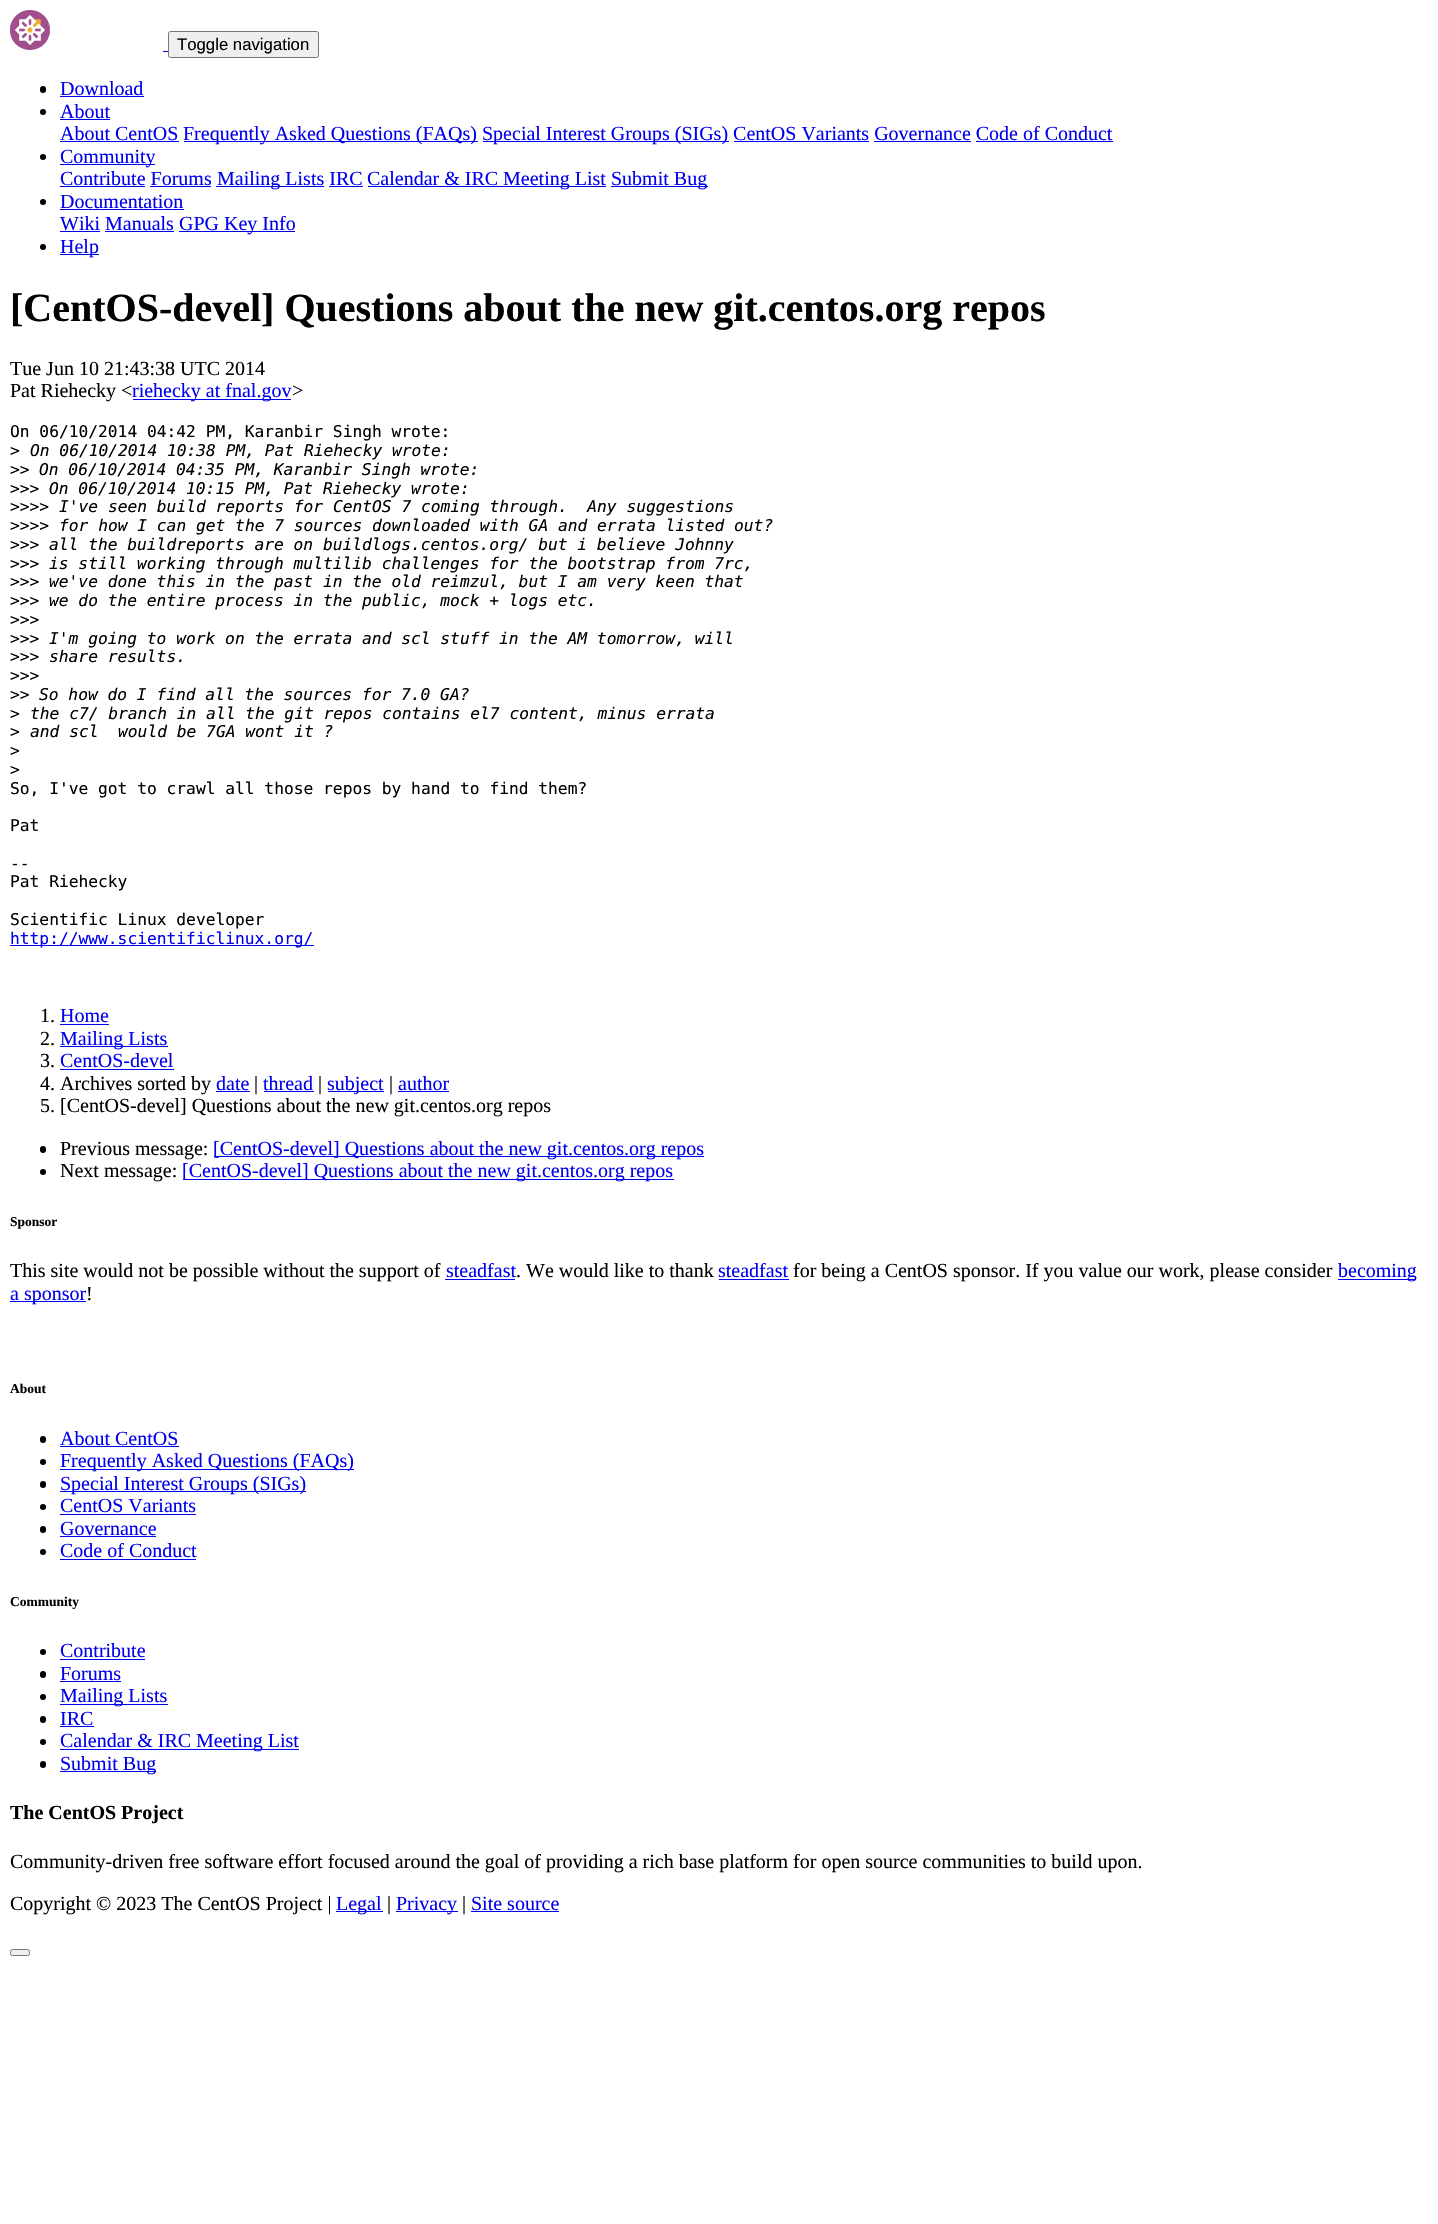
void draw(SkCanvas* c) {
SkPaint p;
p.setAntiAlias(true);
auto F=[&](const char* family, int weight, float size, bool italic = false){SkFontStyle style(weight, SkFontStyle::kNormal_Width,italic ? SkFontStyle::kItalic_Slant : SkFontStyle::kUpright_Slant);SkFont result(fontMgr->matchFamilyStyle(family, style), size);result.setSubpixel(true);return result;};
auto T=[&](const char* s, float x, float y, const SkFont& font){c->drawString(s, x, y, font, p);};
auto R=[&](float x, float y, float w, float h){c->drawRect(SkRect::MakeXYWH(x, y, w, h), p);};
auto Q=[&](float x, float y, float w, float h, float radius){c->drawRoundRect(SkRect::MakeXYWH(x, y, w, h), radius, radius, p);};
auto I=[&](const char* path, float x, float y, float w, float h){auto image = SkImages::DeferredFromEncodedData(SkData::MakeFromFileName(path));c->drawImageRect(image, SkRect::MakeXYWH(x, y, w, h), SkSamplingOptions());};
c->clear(0xffffffff);
I("1.png",10,10,40,40);
p.setColor(0xff0000ee);
R(163,51,5,1);
p.setColor(0xffefefef);
c->drawRoundRect(SkRect::MakeXYWH(168.5,31.5,150,26),2,2,p);
p.setStroke(true);
p.setStrokeWidth(1);
p.setColor(0xff767676);
c->drawRoundRect(SkRect::MakeXYWH(168.5,31.5,150,26),2,2,p);
auto f1 = F("Liberation Sans",400,16.75);
p.setStroke(false);
p.setColor(0xff000000);
T("Toggle navigation",177,50,f1);
Q(40,86,6,7,3);
auto f2 = F("Liberation Serif",400,20);
p.setColor(0xff0000ee);
T("Download",60,95,f2);
R(60,96,84,1);
p.setColor(0xff000000);
c->drawCircle(43,112,3,p);
p.setColor(0xff0000ee);
T("About",60,118,f2);
R(60,119,50,1);
T("About CentOS",60,140,f2);
R(60,141,119,1);
R(184,141,294,1);
T("Frequently Asked Questions (FAQs)",183,140,f2);
R(483,141,246,1);
T("Special Interest Groups (SIGs) CentOS Variants Governance Code of Conduct",482,140,f2);
R(734,141,135,1);
R(874,141,97,1);
R(976,141,137,1);
p.setColor(0xff000000);
c->drawCircle(43,157,3,p);
p.setColor(0xff0000ee);
R(60,164,95,1);
T("Community",60,163,f2);
T("Contribute Forums",60,185,f2);
R(60,186,85,1);
R(216,186,108,1);
T("Mailing Lists IRC",217,185,f2);
R(368,186,238,1);
T("Calendar & IRC Meeting List",367,185,f2);
R(611,186,97,1);
T("Submit Bug",611,185,f2);
R(150,186,61,1);
R(329,186,34,1);
p.setColor(0xff000000);
c->drawCircle(43,202,3,p);
p.setColor(0xff0000ee);
T("Documentation",60,208,f2);
R(60,209,124,1);
T("Wiki Manuals",60,230,f2);
R(60,231,40,1);
R(179,231,116,1);
T("GPG Key Info",179,230,f2);
R(105,231,69,1);
p.setColor(0xff000000);
c->drawCircle(43,247,3,p);
p.setColor(0xff0000ee);
R(60,254,39,1);
T("Help",60,253,f2);
auto f3 = F("Liberation Serif",700,40);
p.setColor(0xff000000);
T("[CentOS-devel] Questions about the new git.centos.org repos",10,321,f3);
T("Tue Jun 10 21:43:38 UTC 2014",10,375,f2);
T("Pat Riehecky <",10,397,f2);
p.setColor(0xff0000ee);
R(133,399,158,1);
T("riehecky at fnal.gov",132,397,f2);
p.setColor(0xff000000);
T(">",292,397,f2);
auto f4 = F("DejaVu Sans Mono",400,16.25);
T("On 06/10/2014 04:42 PM, Karanbir Singh wrote:",10,437,f4);
T(">",10,456,f4);
auto f5 = F("DejaVu Sans Mono",400,16.25,true);
T("On 06/10/2014 10:38 PM, Pat Riehecky wrote:",30,456,f5);
T(">>",10,475,f4);
T("On 06/10/2014 04:35 PM, Karanbir Singh wrote:",39,475,f5);
T(">>>",10,494,f4);
T("On 06/10/2014 10:15 PM, Pat Riehecky wrote:",49,494,f5);
T(">>>>",10,512,f4);
T("I've seen build reports for CentOS 7 coming through.  Any suggestions",59,512,f5);
T(">>>>",10,531,f4);
T("for how I can get the 7 sources downloaded with GA and errata listed out?",59,531,f5);
T(">>>",10,550,f4);
T("all the buildreports are on buildlogs.centos.org/ but i believe Johnny",49,550,f5);
T(">>>",10,569,f4);
T("is still working through multilib challenges for the bootstrap from 7rc,",49,569,f5);
T(">>>",10,587,f4);
T("we've done this in the past in the old reimzul, but I am very keen that",49,587,f5);
T(">>>",10,606,f4);
T("we do the entire process in the public, mock + logs etc.",49,606,f5);
T(">>>",10,625,f4);
T(">>>",10,644,f4);
T("I'm going to work on the errata and scl stuff in the AM tomorrow, will",49,644,f5);
T(">>>",10,662,f4);
T("share results.",49,662,f5);
T(">>>",10,681,f4);
T(">>",10,700,f4);
T("So how do I find all the sources for 7.0 GA?",39,700,f5);
T(">",10,719,f4);
T("the c7/ branch in all the git repos contains el7 content, minus errata",30,719,f5);
T(">",10,737,f4);
T("and scl  would be 7GA wont it ?",30,737,f5);
T(">",10,756,f4);
T(">",10,775,f4);
T("So, I've got to crawl all those repos by hand to find them?",10,794,f4);
T("Pat",10,831,f4);
T("--",10,869,f4);
T("Pat Riehecky",10,887,f4);
T("Scientific Linux developer",10,925,f4);
p.setColor(0xff0000ee);
R(10,945,304,1);
T("http://www.scientificlinux.org/",10,944,f4);
p.setColor(0xff000000);
T("1.",40,1022,f2);
p.setColor(0xff0000ee);
T("Home",60,1022,f2);
R(60,1024,49,1);
p.setColor(0xff000000);
T("2.",40,1045,f2);
p.setColor(0xff0000ee);
R(60,1046,108,1);
T("Mailing Lists",60,1045,f2);
p.setColor(0xff000000);
T("3.",40,1067,f2);
p.setColor(0xff0000ee);
T("CentOS-devel",60,1067,f2);
R(60,1069,114,1);
p.setColor(0xff000000);
T("4. Archives sorted by",40,1090,f2);
p.setColor(0xff0000ee);
T("date",216,1090,f2);
R(216,1091,34,1);
p.setColor(0xff000000);
T("|",254,1090,f2);
p.setColor(0xff0000ee);
T("thread",263,1090,f2);
R(264,1091,50,1);
p.setColor(0xff000000);
T("|",318,1090,f2);
p.setColor(0xff0000ee);
R(328,1091,56,1);
T("subject",327,1090,f2);
p.setColor(0xff000000);
T("|",389,1090,f2);
p.setColor(0xff0000ee);
T("author",398,1090,f2);
R(398,1091,51,1);
p.setColor(0xff000000);
T("5. [CentOS-devel] Questions about the new git.centos.org repos",40,1112,f2);
Q(40,1146,6,7,3);
T("Previous message:",60,1155,f2);
p.setColor(0xff0000ee);
R(214,1156,490,1);
T("[CentOS-devel] Questions about the new git.centos.org repos",213,1155,f2);
p.setColor(0xff000000);
c->drawCircle(43,1172,3,p);
T("Next message:",60,1177,f2);
p.setColor(0xff0000ee);
R(183,1179,491,1);
T("[CentOS-devel] Questions about the new git.centos.org repos",182,1177,f2);
auto f6 = F("Liberation Serif",700,13.5);
p.setColor(0xff000000);
T("Sponsor",10,1226,f6);
T("This site would not be possible without the support of",10,1277,f2);
p.setColor(0xff0000ee);
T("steadfast",446,1277,f2);
R(445,1279,70,1);
p.setColor(0xff000000);
T(". We would like to thank",516,1277,f2);
p.setColor(0xff0000ee);
T("steadfast",718,1277,f2);
R(719,1279,70,1);
p.setColor(0xff000000);
T("for being a CentOS sponsor. If you value our work, please consider",793,1277,f2);
p.setColor(0xff0000ee);
R(1338,1279,78,1);
T("becoming",1338,1277,f2);
R(10,1301,76,1);
T("a sponsor",10,1300,f2);
p.setColor(0xff000000);
T("!",86,1300,f2);
T("About",10,1393,f6);
Q(40,1436,6,7,3);
p.setColor(0xff0000ee);
T("About CentOS",60,1445,f2);
R(60,1446,119,1);
p.setColor(0xff000000);
c->drawCircle(43,1462,3,p);
p.setColor(0xff0000ee);
R(60,1469,294,1);
T("Frequently Asked Questions (FAQs)",60,1467,f2);
p.setColor(0xff000000);
Q(40,1481,6,7,3);
p.setColor(0xff0000ee);
R(60,1491,246,1);
T("Special Interest Groups (SIGs)",60,1490,f2);
p.setColor(0xff000000);
c->drawCircle(43,1507,3,p);
p.setColor(0xff0000ee);
T("CentOS Variants",60,1512,f2);
R(60,1514,136,1);
p.setColor(0xff000000);
Q(40,1526,6,7,3);
p.setColor(0xff0000ee);
T("Governance",60,1535,f2);
R(60,1536,96,1);
p.setColor(0xff000000);
c->drawCircle(43,1552,3,p);
p.setColor(0xff0000ee);
T("Code of Conduct",60,1557,f2);
R(60,1559,136,1);
p.setColor(0xff000000);
T("Community",10,1606,f6);
c->drawCircle(43,1652,3,p);
p.setColor(0xff0000ee);
T("Contribute",60,1657,f2);
R(60,1659,85,1);
p.setColor(0xff000000);
Q(40,1671,6,7,3);
p.setColor(0xff0000ee);
T("Forums",60,1680,f2);
R(60,1681,61,1);
p.setColor(0xff000000);
c->drawCircle(43,1697,3,p);
p.setColor(0xff0000ee);
R(60,1704,108,1);
T("Mailing Lists",60,1702,f2);
p.setColor(0xff000000);
Q(40,1716,6,7,3);
p.setColor(0xff0000ee);
T("IRC",60,1725,f2);
R(60,1726,34,1);
p.setColor(0xff000000);
c->drawCircle(43,1742,3,p);
p.setColor(0xff0000ee);
R(60,1749,239,1);
T("Calendar & IRC Meeting List",60,1747,f2);
p.setColor(0xff000000);
Q(40,1761,6,7,3);
p.setColor(0xff0000ee);
R(60,1771,96,1);
T("Submit Bug",60,1770,f2);
auto f7 = F("Liberation Serif",700,20);
p.setColor(0xff000000);
T("The CentOS Project",10,1819,f7);
T("Community-driven free software effort focused around the goal of providing a rich base platform for open source communities to build upon.",10,1868,f2);
T("Copyright © 2023 The CentOS Project |",10,1910,f2);
p.setColor(0xff0000ee);
R(336,1911,47,1);
T("Legal",336,1910,f2);
p.setColor(0xff000000);
T("|",387,1910,f2);
p.setColor(0xff0000ee);
R(396,1911,62,1);
T("Privacy",396,1910,f2);
p.setColor(0xff000000);
T("|",462,1910,f2);
p.setColor(0xff0000ee);
T("Site source",471,1910,f2);
R(471,1911,88,1);
p.setColor(0xffefefef);
c->drawRoundRect(SkRect::MakeXYWH(10.5,1949.5,19,6),2,2,p);
p.setStroke(true);
p.setColor(0xff767676);
c->drawRoundRect(SkRect::MakeXYWH(10.5,1949.5,19,6),2,2,p);
}
